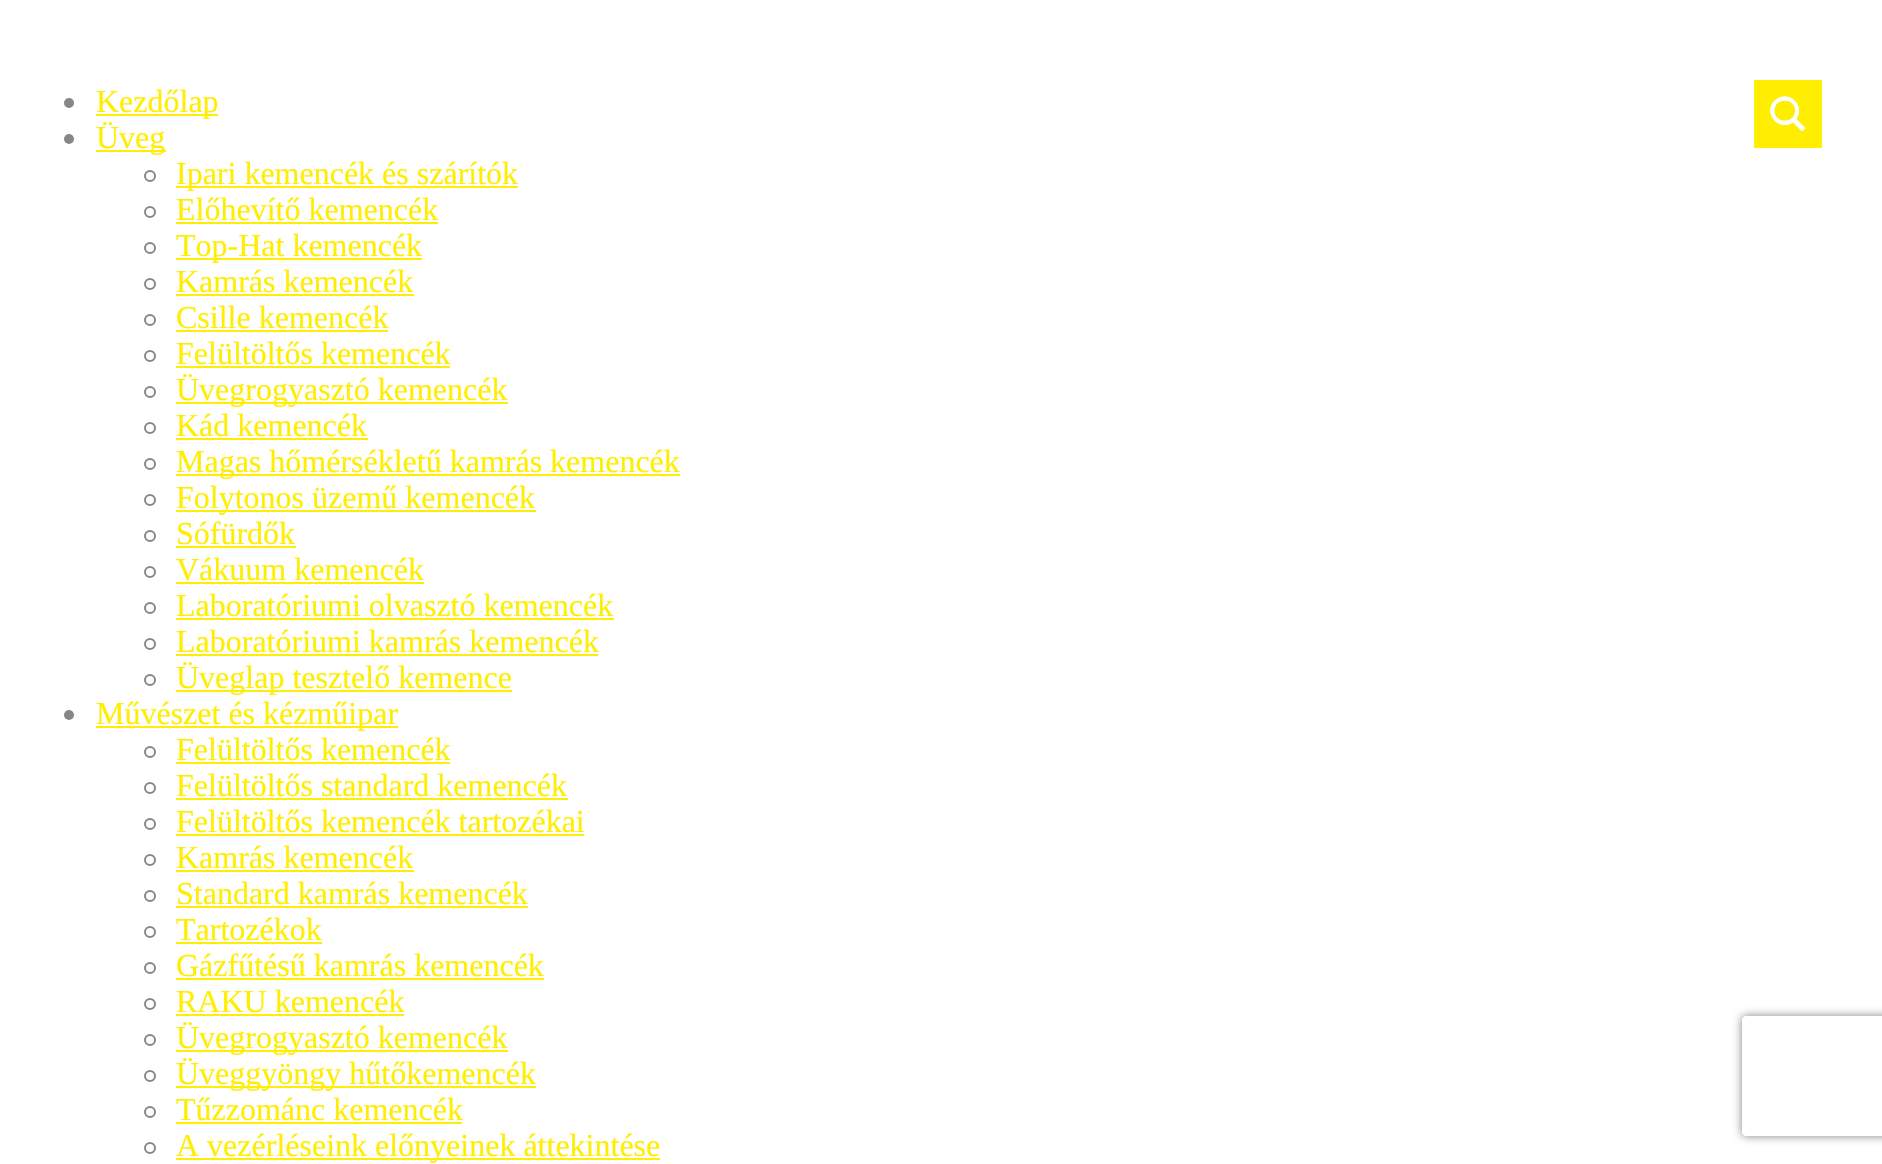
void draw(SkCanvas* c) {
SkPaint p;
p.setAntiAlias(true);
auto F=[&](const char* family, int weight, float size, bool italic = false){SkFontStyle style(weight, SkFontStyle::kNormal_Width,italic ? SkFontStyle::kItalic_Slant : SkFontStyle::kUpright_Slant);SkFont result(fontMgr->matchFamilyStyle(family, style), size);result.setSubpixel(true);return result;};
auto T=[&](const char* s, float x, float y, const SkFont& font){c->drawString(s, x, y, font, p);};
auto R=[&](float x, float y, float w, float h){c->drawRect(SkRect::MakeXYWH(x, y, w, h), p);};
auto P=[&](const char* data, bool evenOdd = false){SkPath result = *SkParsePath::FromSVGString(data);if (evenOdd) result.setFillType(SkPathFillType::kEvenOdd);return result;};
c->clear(0xffffffff);
p.setColor(0xff878787);
c->drawCircle(69,103,5,p);
p.setColor(0xffffee00);
R(96,114,122,2);
auto f1 = F("Liberation Serif",400,32);
T("Kezdőlap",96,112,f1);
p.setColor(0xff878787);
c->drawCircle(69,139,5,p);
p.setColor(0xffffee00);
R(96,150,70,2);
T("Üveg",96,148,f1);
p.setStroke(true);
p.setStrokeWidth(2);
p.setColor(0xff878787);
c->drawCircle(150,176,5,p);
p.setStroke(false);
p.setColor(0xffffee00);
R(176,186,342,2);
T("Ipari kemencék és szárítók",176,184,f1);
p.setStroke(true);
p.setColor(0xff878787);
c->drawCircle(150,212,5,p);
p.setStroke(false);
p.setColor(0xffffee00);
T("Előhevítő kemencék",176,220,f1);
R(176,222,262,2);
p.setStroke(true);
p.setColor(0xff878787);
c->drawCircle(150,248,5,p);
p.setStroke(false);
p.setColor(0xffffee00);
R(176,258,246,2);
T("Top-Hat kemencék",176,256,f1);
p.setStroke(true);
p.setColor(0xff878787);
c->drawCircle(150,284,5,p);
p.setStroke(false);
p.setColor(0xffffee00);
T("Kamrás kemencék",176,292,f1);
R(176,294,238,2);
p.setStroke(true);
p.setColor(0xff878787);
c->drawCircle(150,320,5,p);
p.setStroke(false);
p.setColor(0xffffee00);
T("Csille kemencék",176,328,f1);
R(176,330,212,2);
p.setStroke(true);
p.setColor(0xff878787);
c->drawCircle(150,356,5,p);
p.setStroke(false);
p.setColor(0xffffee00);
T("Felültöltős kemencék",176,364,f1);
R(176,366,274,2);
p.setStroke(true);
p.setColor(0xff878787);
c->drawCircle(150,392,5,p);
p.setStroke(false);
p.setColor(0xffffee00);
R(176,402,332,2);
T("Üvegrogyasztó kemencék",176,400,f1);
p.setStroke(true);
p.setColor(0xff878787);
c->drawCircle(150,428,5,p);
p.setStroke(false);
p.setColor(0xffffee00);
T("Kád kemencék",176,436,f1);
R(176,438,192,2);
p.setStroke(true);
p.setColor(0xff878787);
c->drawCircle(150,464,5,p);
p.setStroke(false);
p.setColor(0xffffee00);
R(176,474,504,2);
T("Magas hőmérsékletű kamrás kemencék",176,472,f1);
p.setStroke(true);
p.setColor(0xff878787);
c->drawCircle(150,500,5,p);
p.setStroke(false);
p.setColor(0xffffee00);
R(176,510,360,2);
T("Folytonos üzemű kemencék",176,508,f1);
p.setStroke(true);
p.setColor(0xff878787);
c->drawCircle(150,536,5,p);
p.setStroke(false);
p.setColor(0xffffee00);
T("Sófürdők",176,544,f1);
R(176,546,120,2);
p.setStroke(true);
p.setColor(0xff878787);
c->drawCircle(150,572,5,p);
p.setStroke(false);
p.setColor(0xffffee00);
T("Vákuum kemencék",176,580,f1);
R(176,582,248,2);
p.setStroke(true);
p.setColor(0xff878787);
c->drawCircle(150,608,5,p);
p.setStroke(false);
p.setColor(0xffffee00);
T("Laboratóriumi olvasztó kemencék",176,616,f1);
R(176,618,438,2);
p.setStroke(true);
p.setColor(0xff878787);
c->drawCircle(150,644,5,p);
p.setStroke(false);
p.setColor(0xffffee00);
T("Laboratóriumi kamrás kemencék",176,652,f1);
R(176,654,422,2);
p.setStroke(true);
p.setColor(0xff878787);
c->drawCircle(150,680,5,p);
p.setStroke(false);
p.setColor(0xffffee00);
R(176,690,336,2);
T("Üveglap tesztelő kemence",176,688,f1);
p.setColor(0xff878787);
c->drawCircle(69,715,5,p);
p.setColor(0xffffee00);
R(96,726,302,2);
T("Művészet és kézműipar",96,724,f1);
p.setStroke(true);
p.setColor(0xff878787);
c->drawCircle(150,752,5,p);
p.setStroke(false);
p.setColor(0xffffee00);
T("Felültöltős kemencék",176,760,f1);
R(176,762,274,2);
p.setStroke(true);
p.setColor(0xff878787);
c->drawCircle(150,788,5,p);
p.setStroke(false);
p.setColor(0xffffee00);
T("Felültöltős standard kemencék",176,796,f1);
R(176,798,392,2);
p.setStroke(true);
p.setColor(0xff878787);
c->drawCircle(150,824,5,p);
p.setStroke(false);
p.setColor(0xffffee00);
T("Felültöltős kemencék tartozékai",176,832,f1);
R(176,834,408,2);
p.setStroke(true);
p.setColor(0xff878787);
c->drawCircle(150,860,5,p);
p.setStroke(false);
p.setColor(0xffffee00);
T("Kamrás kemencék",176,868,f1);
R(176,870,238,2);
p.setStroke(true);
p.setColor(0xff878787);
c->drawCircle(150,896,5,p);
p.setStroke(false);
p.setColor(0xffffee00);
T("Standard kamrás kemencék",176,904,f1);
R(176,906,352,2);
p.setStroke(true);
p.setColor(0xff878787);
c->drawCircle(150,932,5,p);
p.setStroke(false);
p.setColor(0xffffee00);
T("Tartozékok",176,940,f1);
R(176,942,146,2);
p.setStroke(true);
p.setColor(0xff878787);
c->drawCircle(150,968,5,p);
p.setStroke(false);
p.setColor(0xffffee00);
T("Gázfűtésű kamrás kemencék",176,976,f1);
R(176,978,368,2);
p.setStroke(true);
p.setColor(0xff878787);
c->drawCircle(150,1004,5,p);
p.setStroke(false);
p.setColor(0xffffee00);
T("RAKU kemencék",176,1012,f1);
R(176,1014,228,2);
p.setStroke(true);
p.setColor(0xff878787);
c->drawCircle(150,1040,5,p);
p.setStroke(false);
p.setColor(0xffffee00);
R(176,1050,332,2);
T("Üvegrogyasztó kemencék",176,1048,f1);
p.setStroke(true);
p.setColor(0xff878787);
c->drawCircle(150,1076,5,p);
p.setStroke(false);
p.setColor(0xffffee00);
R(176,1086,360,2);
T("Üveggyöngy hűtőkemencék",176,1084,f1);
p.setStroke(true);
p.setColor(0xff878787);
c->drawCircle(150,1112,5,p);
p.setStroke(false);
p.setColor(0xffffee00);
T("Tűzzománc kemencék",176,1120,f1);
R(176,1122,286,2);
p.setStroke(true);
p.setColor(0xff878787);
c->drawCircle(150,1148,5,p);
p.setStroke(false);
p.setColor(0xffffee00);
R(176,1158,484,2);
T("A vezérléseink előnyeinek áttekintése",176,1156,f1);
R(1754,80,68,68);
p.setColor(0xffffffff);
c->drawPath(P("M1805.5 128l-9-9c10-14-9-31-22-18.5c-12.5 12.5 4.5 31.5 18.5 22l9 9zm-31-17.5c0-13 20.5-13 20.5 0c0 13.5-20.5 13.5-20.5 0z"),p);
c->save();
c->clipPath(P("M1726 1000h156v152h-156zm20 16h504c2 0 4 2 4 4v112c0 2-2 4-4 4h-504c-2 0-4-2-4-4v-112c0-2 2-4 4-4z",true),true);
p.setColor(0xff808080);
p.setMaskFilter(SkMaskFilter::MakeBlur(kNormal_SkBlurStyle, 5));
c->drawRoundRect(SkRect::MakeXYWH(1742,1016,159,120),4,4,p);
p.setMaskFilter(nullptr);
c->restore();
}
